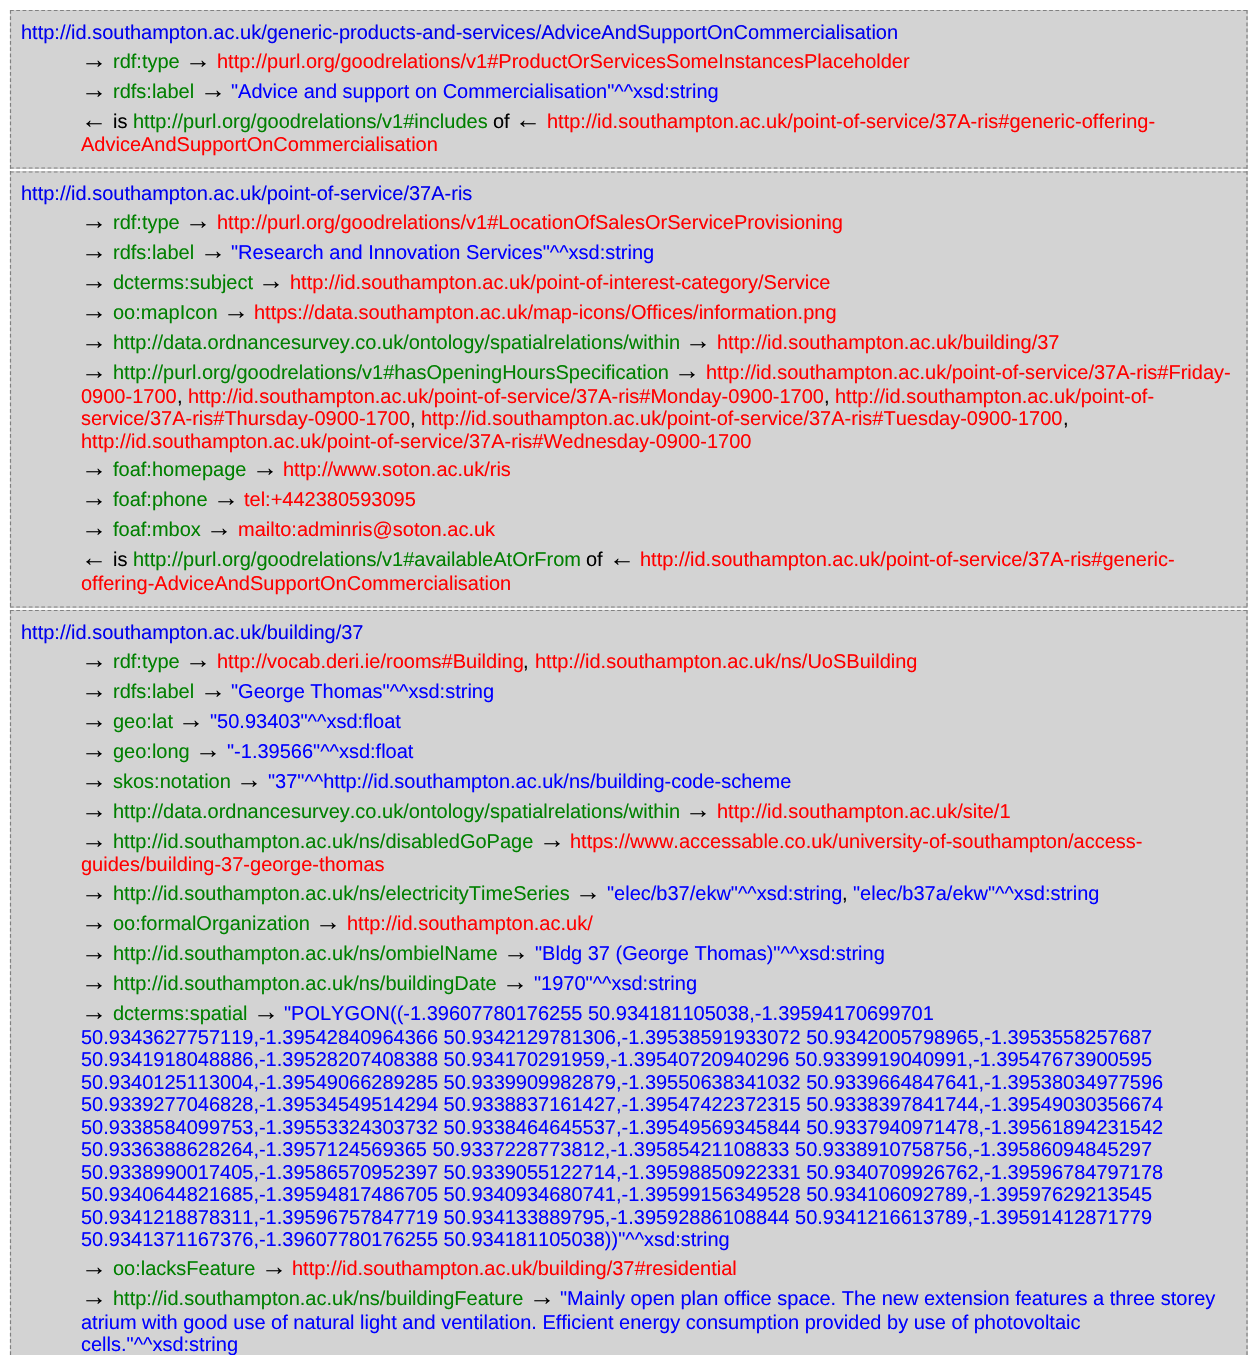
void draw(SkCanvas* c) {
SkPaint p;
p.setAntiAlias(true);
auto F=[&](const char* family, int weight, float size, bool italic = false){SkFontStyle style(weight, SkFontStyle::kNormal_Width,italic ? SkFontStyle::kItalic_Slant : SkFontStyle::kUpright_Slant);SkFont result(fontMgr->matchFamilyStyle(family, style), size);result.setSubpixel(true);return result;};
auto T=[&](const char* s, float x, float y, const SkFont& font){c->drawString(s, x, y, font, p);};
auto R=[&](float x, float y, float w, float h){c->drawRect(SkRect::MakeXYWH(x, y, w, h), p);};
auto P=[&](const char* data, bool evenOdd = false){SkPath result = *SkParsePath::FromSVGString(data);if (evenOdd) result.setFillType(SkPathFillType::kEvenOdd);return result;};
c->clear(0xffffffff);
p.setColor(0xffd3d3d3);
R(10,10,1238,159);
p.setStroke(true);
p.setStrokeWidth(1.2);
p.setColor(0xff808080);
p.setPathEffect(SkDashPathEffect::Make({{3.75f,2.51f}}, 0));
c->drawPath(P("M10 10.5h1237.5"),p);
p.setPathEffect(nullptr);
p.setPathEffect(SkDashPathEffect::Make({{3.75f,2.45f}}, 0));
c->drawPath(P("M1247 10v159"),p);
p.setPathEffect(nullptr);
p.setPathEffect(SkDashPathEffect::Make({{3.75f,2.51f}}, 0));
c->drawPath(P("M10 168h1237.5"),p);
p.setPathEffect(nullptr);
p.setPathEffect(SkDashPathEffect::Make({{3.75f,2.45f}}, 0));
c->drawPath(P("M10.5 10v159"),p);
p.setPathEffect(nullptr);
auto f1 = F("Liberation Sans",400,20);
p.setStroke(false);
p.setColor(0xff0000ee);
T("http://id.southampton.ac.uk/generic-products-and-services/AdviceAndSupportOnCommercialisation",21,39,f1);
auto f2 = F("Liberation Sans",400,26);
p.setColor(0xff000000);
T("→",81,68,f2);
p.setColor(0xff008000);
T("rdf:type",113,68,f1);
p.setColor(0xff000000);
T("→",185,68,f2);
p.setColor(0xffff0000);
T("http://purl.org/goodrelations/v1#ProductOrServicesSomeInstancesPlaceholder",217,68,f1);
p.setColor(0xff000000);
T("→",81,98,f2);
p.setColor(0xff008000);
T("rdfs:label",113,98,f1);
p.setColor(0xff000000);
T("→",200,98,f2);
p.setColor(0xff0000ff);
T("\"Advice and support on Commercialisation\"^^xsd:string",231,98,f1);
p.setColor(0xff000000);
T("←",81,128,f2);
T("is",113,128,f1);
p.setColor(0xff008000);
T("http://purl.org/goodrelations/v1#includes",133,128,f1);
p.setColor(0xff000000);
T("of",493,128,f1);
T("←",515,128,f2);
p.setColor(0xffff0000);
T("http://id.southampton.ac.uk/point-of-service/37A-ris#generic-offering-",547,128,f1);
T("AdviceAndSupportOnCommercialisation",81,151,f1);
p.setColor(0xffd3d3d3);
R(10,171,1238,437);
p.setStroke(true);
p.setColor(0xff808080);
p.setPathEffect(SkDashPathEffect::Make({{3.75f,2.51f}}, 0));
c->drawPath(P("M10 172h1237.5"),p);
p.setPathEffect(nullptr);
p.setPathEffect(SkDashPathEffect::Make({{3.75f,2.51f}}, 0));
c->drawPath(P("M1247 171v436.5"),p);
p.setPathEffect(nullptr);
p.setPathEffect(SkDashPathEffect::Make({{3.75f,2.51f}}, 0));
c->drawPath(P("M10 607h1237.5"),p);
p.setPathEffect(nullptr);
p.setPathEffect(SkDashPathEffect::Make({{3.75f,2.51f}}, 0));
c->drawPath(P("M10.5 171v436.5"),p);
p.setPathEffect(nullptr);
p.setStroke(false);
p.setColor(0xff0000ee);
T("http://id.southampton.ac.uk/point-of-service/37A-ris",21,200,f1);
p.setColor(0xff000000);
T("→",81,229,f2);
p.setColor(0xff008000);
T("rdf:type",113,229,f1);
p.setColor(0xff000000);
T("→",185,229,f2);
p.setColor(0xffff0000);
T("http://purl.org/goodrelations/v1#LocationOfSalesOrServiceProvisioning",217,229,f1);
p.setColor(0xff000000);
T("→",81,259,f2);
p.setColor(0xff008000);
T("rdfs:label",113,259,f1);
p.setColor(0xff000000);
T("→",200,259,f2);
p.setColor(0xff0000ff);
T("\"Research and Innovation Services\"^^xsd:string",231,259,f1);
p.setColor(0xff000000);
T("→",81,289,f2);
p.setColor(0xff008000);
T("dcterms:subject",113,289,f1);
p.setColor(0xff000000);
T("→",258,289,f2);
p.setColor(0xffff0000);
T("http://id.southampton.ac.uk/point-of-interest-category/Service",290,289,f1);
p.setColor(0xff000000);
T("→",81,319,f2);
p.setColor(0xff008000);
T("oo:mapIcon",113,319,f1);
p.setColor(0xff000000);
T("→",223,319,f2);
p.setColor(0xffff0000);
T("https://data.southampton.ac.uk/map-icons/Offices/information.png",254,319,f1);
p.setColor(0xff000000);
T("→",81,349,f2);
p.setColor(0xff008000);
T("http://data.ordnancesurvey.co.uk/ontology/spatialrelations/within",113,349,f1);
p.setColor(0xff000000);
T("→",685,349,f2);
p.setColor(0xffff0000);
T("http://id.southampton.ac.uk/building/37",717,349,f1);
p.setColor(0xff000000);
T("→",81,379,f2);
p.setColor(0xff008000);
T("http://purl.org/goodrelations/v1#hasOpeningHoursSpecification",113,379,f1);
p.setColor(0xff000000);
T("→",674,379,f2);
p.setColor(0xffff0000);
T("http://id.southampton.ac.uk/point-of-service/37A-ris#Friday-",706,379,f1);
T("0900-1700",81,403,f1);
p.setColor(0xff000000);
T(",",177,403,f1);
p.setColor(0xffff0000);
T("http://id.southampton.ac.uk/point-of-service/37A-ris#Monday-0900-1700",188,403,f1);
p.setColor(0xff000000);
T(",",824,403,f1);
p.setColor(0xffff0000);
T("http://id.southampton.ac.uk/point-of-",835,403,f1);
T("service/37A-ris#Thursday-0900-1700",81,425,f1);
p.setColor(0xff000000);
T(",",410,425,f1);
p.setColor(0xffff0000);
T("http://id.southampton.ac.uk/point-of-service/37A-ris#Tuesday-0900-1700",421,425,f1);
p.setColor(0xff000000);
T(",",1063,425,f1);
p.setColor(0xffff0000);
T("http://id.southampton.ac.uk/point-of-service/37A-ris#Wednesday-0900-1700",81,448,f1);
p.setColor(0xff000000);
T("→",81,476,f2);
p.setColor(0xff008000);
T("foaf:homepage",113,476,f1);
p.setColor(0xff000000);
T("→",252,476,f2);
p.setColor(0xffff0000);
T("http://www.soton.ac.uk/ris",283,476,f1);
p.setColor(0xff000000);
T("→",81,506,f2);
p.setColor(0xff008000);
T("foaf:phone",113,506,f1);
p.setColor(0xff000000);
T("→",213,506,f2);
p.setColor(0xffff0000);
T("tel:+442380593095",244,506,f1);
p.setColor(0xff000000);
T("→",81,536,f2);
p.setColor(0xff008000);
T("foaf:mbox",113,536,f1);
p.setColor(0xff000000);
T("→",206,536,f2);
p.setColor(0xffff0000);
T("mailto:adminris@soton.ac.uk",238,536,f1);
p.setColor(0xff000000);
T("←",81,566,f2);
T("is",113,566,f1);
p.setColor(0xff008000);
T("http://purl.org/goodrelations/v1#availableAtOrFrom",133,566,f1);
p.setColor(0xff000000);
T("of",586,566,f1);
T("←",609,566,f2);
p.setColor(0xffff0000);
T("http://id.southampton.ac.uk/point-of-service/37A-ris#generic-",640,566,f1);
T("offering-AdviceAndSupportOnCommercialisation",81,590,f1);
p.setColor(0xffd3d3d3);
R(10,610,1238,745);
p.setStroke(true);
p.setColor(0xff808080);
p.setPathEffect(SkDashPathEffect::Make({{3.75f,2.51f}}, 0));
c->drawPath(P("M10 610.5h1237.5"),p);
p.setPathEffect(nullptr);
p.setPathEffect(SkDashPathEffect::Make({{3.75f,2.48f}}, 0));
c->drawPath(P("M1247 610v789"),p);
p.setPathEffect(nullptr);
p.setPathEffect(SkDashPathEffect::Make({{3.75f,2.48f}}, 0));
c->drawPath(P("M10.5 610v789"),p);
p.setPathEffect(nullptr);
p.setStroke(false);
p.setColor(0xff0000ee);
T("http://id.southampton.ac.uk/building/37",21,639,f1);
p.setColor(0xff000000);
T("→",81,668,f2);
p.setColor(0xff008000);
T("rdf:type",113,668,f1);
p.setColor(0xff000000);
T("→",185,668,f2);
p.setColor(0xffff0000);
T("http://vocab.deri.ie/rooms#Building",217,668,f1);
T("http://id.southampton.ac.uk/ns/UoSBuilding",535,668,f1);
p.setColor(0xff000000);
T(",",523,668,f1);
T("→",81,698,f2);
p.setColor(0xff008000);
T("rdfs:label",113,698,f1);
p.setColor(0xff000000);
T("→",200,698,f2);
p.setColor(0xff0000ff);
T("\"George Thomas\"^^xsd:string",231,698,f1);
p.setColor(0xff000000);
T("→",81,728,f2);
p.setColor(0xff008000);
T("geo:lat",113,728,f1);
p.setColor(0xff000000);
T("→",178,728,f2);
p.setColor(0xff0000ff);
T("\"50.93403\"^^xsd:float",210,728,f1);
p.setColor(0xff000000);
T("→",81,758,f2);
p.setColor(0xff008000);
T("geo:long",113,758,f1);
p.setColor(0xff000000);
T("→",195,758,f2);
p.setColor(0xff0000ff);
T("\"-1.39566\"^^xsd:float",227,758,f1);
p.setColor(0xff000000);
T("→",81,788,f2);
p.setColor(0xff008000);
T("skos:notation",113,788,f1);
p.setColor(0xff000000);
T("→",236,788,f2);
p.setColor(0xff0000ff);
T("\"37\"^^http://id.southampton.ac.uk/ns/building-code-scheme",268,788,f1);
p.setColor(0xff000000);
T("→",81,818,f2);
p.setColor(0xff008000);
T("http://data.ordnancesurvey.co.uk/ontology/spatialrelations/within",113,818,f1);
p.setColor(0xff000000);
T("→",685,818,f2);
p.setColor(0xffff0000);
T("http://id.southampton.ac.uk/site/1",717,818,f1);
p.setColor(0xff000000);
T("→",81,848,f2);
p.setColor(0xff008000);
T("http://id.southampton.ac.uk/ns/disabledGoPage",113,848,f1);
p.setColor(0xff000000);
T("→",539,848,f2);
p.setColor(0xffff0000);
T("https://www.accessable.co.uk/university-of-southampton/access-",570,848,f1);
T("guides/building-37-george-thomas",81,871,f1);
p.setColor(0xff000000);
T("→",81,900,f2);
p.setColor(0xff008000);
T("http://id.southampton.ac.uk/ns/electricityTimeSeries",113,900,f1);
p.setColor(0xff000000);
T("→",575,900,f2);
p.setColor(0xff0000ff);
T("\"elec/b37/ekw\"^^xsd:string",607,900,f1);
T("\"elec/b37a/ekw\"^^xsd:string",853,900,f1);
p.setColor(0xff000000);
T(",",842,900,f1);
T("→",81,930,f2);
p.setColor(0xff008000);
T("oo:formalOrganization",113,930,f1);
p.setColor(0xff000000);
T("→",315,930,f2);
p.setColor(0xffff0000);
T("http://id.southampton.ac.uk/",347,930,f1);
p.setColor(0xff000000);
T("→",81,960,f2);
p.setColor(0xff008000);
T("http://id.southampton.ac.uk/ns/ombielName",113,960,f1);
p.setColor(0xff000000);
T("→",503,960,f2);
p.setColor(0xff0000ff);
T("\"Bldg 37 (George Thomas)\"^^xsd:string",535,960,f1);
p.setColor(0xff000000);
T("→",81,990,f2);
p.setColor(0xff008000);
T("http://id.southampton.ac.uk/ns/buildingDate",113,990,f1);
p.setColor(0xff000000);
T("→",502,990,f2);
p.setColor(0xff0000ff);
T("\"1970\"^^xsd:string",534,990,f1);
p.setColor(0xff000000);
T("→",81,1020,f2);
p.setColor(0xff008000);
T("dcterms:spatial",113,1020,f1);
p.setColor(0xff000000);
T("→",253,1020,f2);
p.setColor(0xff0000ff);
T("\"POLYGON((-1.39607780176255 50.934181105038,-1.39594170699701",284,1020,f1);
T("50.9343627757119,-1.39542840964366 50.9342129781306,-1.39538591933072 50.9342005798965,-1.3953558257687",81,1044,f1);
T("50.9341918048886,-1.39528207408388 50.934170291959,-1.39540720940296 50.9339919040991,-1.39547673900595",81,1066,f1);
T("50.9340125113004,-1.39549066289285 50.9339909982879,-1.39550638341032 50.9339664847641,-1.39538034977596",81,1089,f1);
T("50.9339277046828,-1.39534549514294 50.9338837161427,-1.39547422372315 50.9338397841744,-1.39549030356674",81,1111,f1);
T("50.9338584099753,-1.39553324303732 50.9338464645537,-1.39549569345844 50.9337940971478,-1.39561894231542",81,1134,f1);
T("50.9336388628264,-1.3957124569365 50.9337228773812,-1.39585421108833 50.9338910758756,-1.39586094845297",81,1156,f1);
T("50.9338990017405,-1.39586570952397 50.9339055122714,-1.39598850922331 50.9340709926762,-1.39596784797178",81,1179,f1);
T("50.9340644821685,-1.39594817486705 50.9340934680741,-1.39599156349528 50.934106092789,-1.39597629213545",81,1201,f1);
T("50.9341218878311,-1.39596757847719 50.934133889795,-1.39592886108844 50.9341216613789,-1.39591412871779",81,1224,f1);
T("50.9341371167376,-1.39607780176255 50.934181105038))\"^^xsd:string",81,1246,f1);
p.setColor(0xff000000);
T("→",81,1275,f2);
p.setColor(0xff008000);
T("oo:lacksFeature",113,1275,f1);
p.setColor(0xff000000);
T("→",261,1275,f2);
p.setColor(0xffff0000);
T("http://id.southampton.ac.uk/building/37#residential",292,1275,f1);
p.setColor(0xff000000);
T("→",81,1305,f2);
p.setColor(0xff008000);
T("http://id.southampton.ac.uk/ns/buildingFeature",113,1305,f1);
p.setColor(0xff000000);
T("→",529,1305,f2);
p.setColor(0xff0000ff);
T("\"Mainly open plan office space. The new extension features a three storey",560,1305,f1);
T("atrium with good use of natural light and ventilation. Efficient energy consumption provided by use of photovoltaic",81,1329,f1);
T("cells.\"^^xsd:string",81,1351,f1);
}
